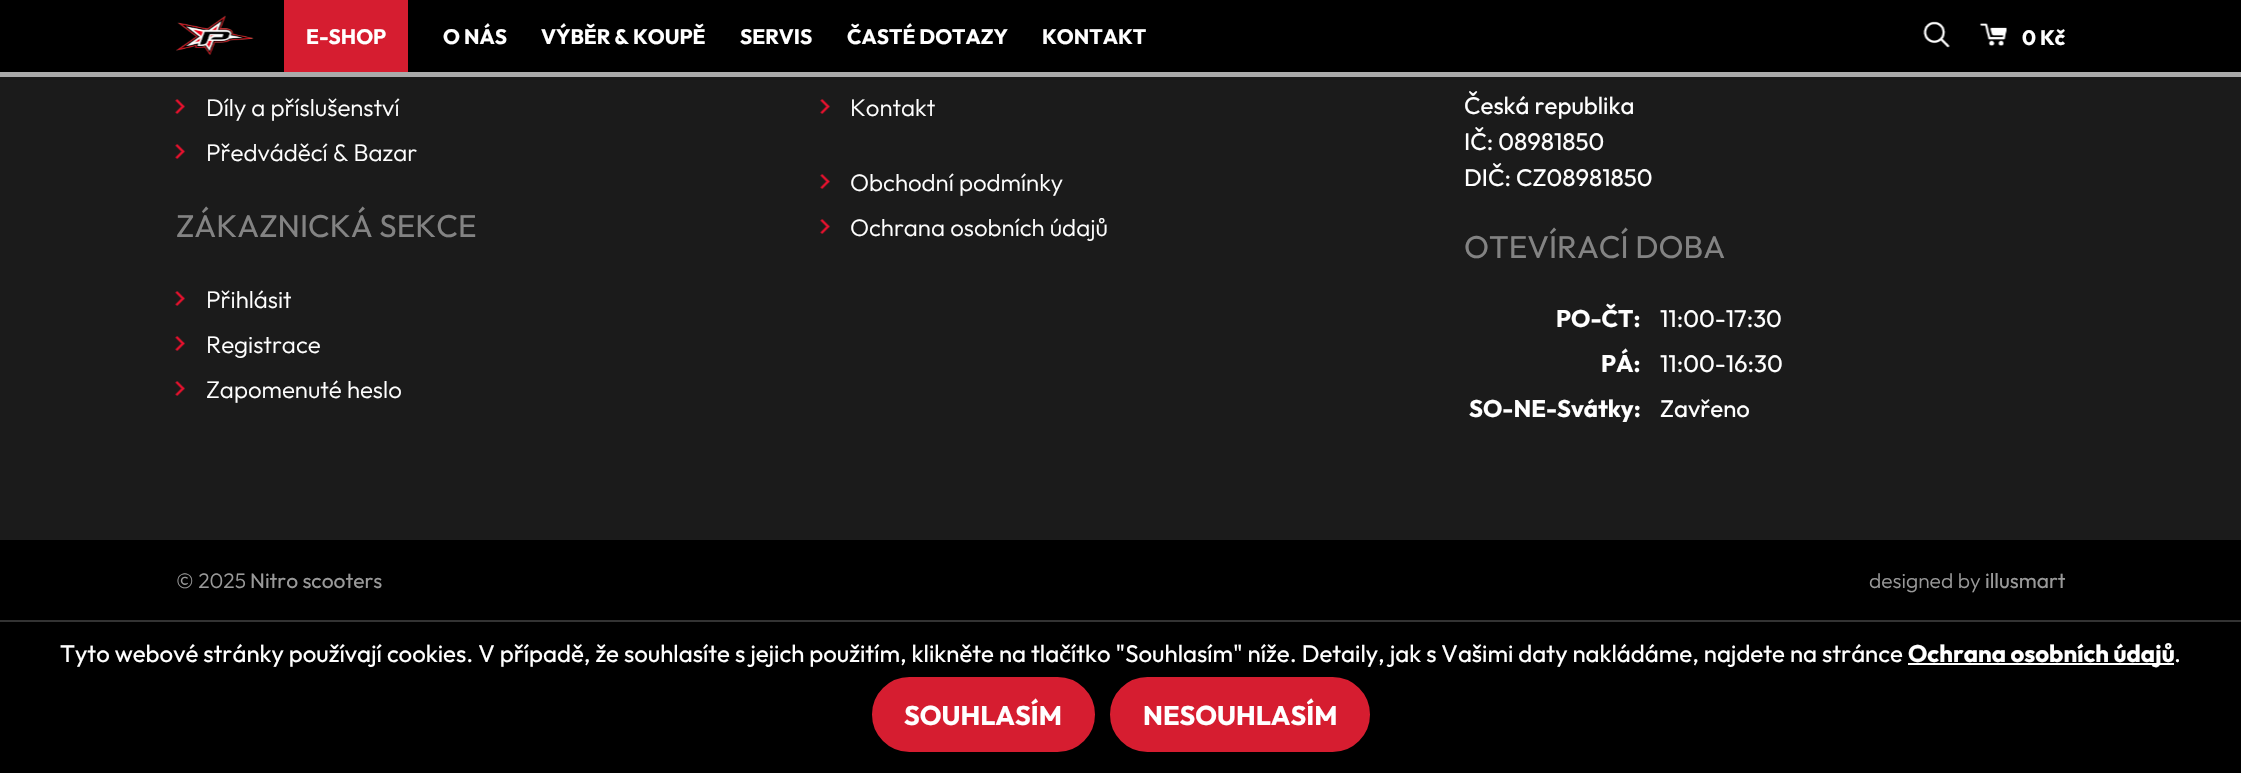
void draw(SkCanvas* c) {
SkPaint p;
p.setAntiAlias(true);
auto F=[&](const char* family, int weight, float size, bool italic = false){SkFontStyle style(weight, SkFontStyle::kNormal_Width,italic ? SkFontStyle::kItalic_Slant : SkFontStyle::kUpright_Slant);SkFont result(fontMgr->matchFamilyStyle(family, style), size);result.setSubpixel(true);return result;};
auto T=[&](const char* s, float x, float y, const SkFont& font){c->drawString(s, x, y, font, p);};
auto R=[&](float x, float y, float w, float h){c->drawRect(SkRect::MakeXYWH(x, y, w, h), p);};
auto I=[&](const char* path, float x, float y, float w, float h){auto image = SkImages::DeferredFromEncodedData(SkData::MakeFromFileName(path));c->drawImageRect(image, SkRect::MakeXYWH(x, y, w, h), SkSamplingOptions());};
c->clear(0xff1b1b1b);
p.setColor(0xff000000);
R(0,0,2241,72);
p.setColor(0xffaaaaaa);
R(0,72,2241,5);
I("1.png",176,15,78,40);
p.setColor(0xffd61d30);
R(284,0,124,72);
auto f1 = F("Outfit",700,21);
p.setColor(0xffffffff);
T("E-SHOP",306,44,f1);
T("O NÁS",443,44,f1);
T("VÝBĚR & KOUPĚ",541,44,f1);
T("SERVIS",740,44,f1);
T("ČASTÉ DOTAZY",847,44,f1);
T("KONTAKT",1042,44,f1);
I("2.png",1923,21,27,27);
I("3.png",1979,23,28,23);
T("0 Kč",2022,45,f1);
I("4.png",175,99,10,15);
auto f2 = F("Outfit",300,24);
T("Díly a příslušenství",206,116,f2);
I("4.png",175,144,10,15);
T("Předváděcí & Bazar",206,161,f2);
auto f3 = F("Outfit",400,31.5);
p.setColor(0xff838383);
T("ZÁKAZNICKÁ SEKCE",176,237,f3);
I("4.png",175,291,10,15);
p.setColor(0xffffffff);
T("Přihlásit",206,308,f2);
I("4.png",175,336,10,15);
T("Registrace",206,353,f2);
I("4.png",175,381,10,15);
T("Zapomenuté heslo",206,398,f2);
I("4.png",820,99,10,15);
T("Kontakt",850,116,f2);
I("4.png",820,174,10,15);
T("Obchodní podmínky",850,191,f2);
I("4.png",820,219,10,15);
T("Ochrana osobních údajů",850,236,f2);
auto f4 = F("Outfit",400,24);
T("Česká republika",1464,114,f4);
T("IČ: 08981850",1464,150,f4);
T("DIČ: CZ08981850",1464,186,f4);
p.setColor(0xff838383);
T("OTEVÍRACÍ DOBA",1464,258,f3);
auto f5 = F("Outfit",700,24);
p.setColor(0xffffffff);
T("PO-ČT:",1556,327,f5);
T("11:00-17:30",1660,327,f4);
T("PÁ:",1601,372,f5);
T("11:00-16:30",1660,372,f4);
T("SO-NE-Svátky:",1469,417,f5);
T("Zavřeno",1660,417,f4);
p.setColor(0xff000000);
R(0,540,2241,80);
auto f6 = F("Outfit",300,21);
p.setColor(0xff999999);
T("© 2025",176,588,f6);
auto f7 = F("Outfit",400,21);
T("Nitro scooters",250,588,f7);
T("designed by",1869,588,f6);
T("illusmart",1985,588,f7);
p.setColor(0xff000000);
R(0,622,2241,151);
p.setColor(0xff333333);
R(0,620,2241,2);
p.setColor(0xffffffff);
T("Tyto webové stránky používají cookies. V případě, že souhlasíte s jejich použitím, klikněte na tlačítko \"Souhlasím\" níže. Detaily, jak s Vašimi daty nakládáme, najdete na stránce",60,662,f4);
R(1908,663,266,2);
T("Ochrana osobních údajů",1908,662,f5);
T(".",2174,662,f4);
p.setColor(0xffd61d30);
c->drawRoundRect(SkRect::MakeXYWH(873.5,678.5,220,72),36,36,p);
p.setStroke(true);
p.setStrokeWidth(3);
c->drawRoundRect(SkRect::MakeXYWH(873.5,678.5,220,72),36,36,p);
auto f8 = F("Outfit",700,27);
p.setStroke(false);
p.setColor(0xffffffff);
T("SOUHLASÍM",904,725,f8);
p.setColor(0xffd61d30);
c->drawRoundRect(SkRect::MakeXYWH(1111.5,678.5,257,72),36,36,p);
p.setStroke(true);
c->drawRoundRect(SkRect::MakeXYWH(1111.5,678.5,257,72),36,36,p);
p.setStroke(false);
p.setColor(0xffffffff);
T("NESOUHLASÍM",1143,725,f8);
}
